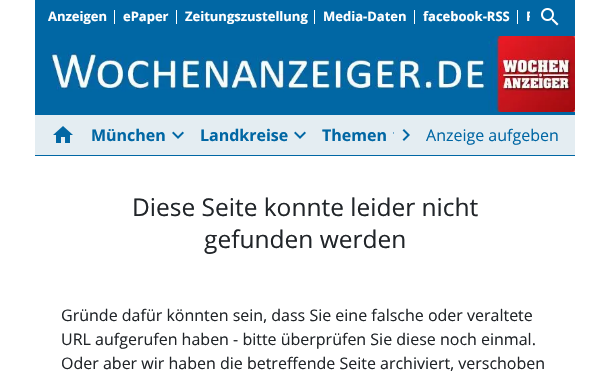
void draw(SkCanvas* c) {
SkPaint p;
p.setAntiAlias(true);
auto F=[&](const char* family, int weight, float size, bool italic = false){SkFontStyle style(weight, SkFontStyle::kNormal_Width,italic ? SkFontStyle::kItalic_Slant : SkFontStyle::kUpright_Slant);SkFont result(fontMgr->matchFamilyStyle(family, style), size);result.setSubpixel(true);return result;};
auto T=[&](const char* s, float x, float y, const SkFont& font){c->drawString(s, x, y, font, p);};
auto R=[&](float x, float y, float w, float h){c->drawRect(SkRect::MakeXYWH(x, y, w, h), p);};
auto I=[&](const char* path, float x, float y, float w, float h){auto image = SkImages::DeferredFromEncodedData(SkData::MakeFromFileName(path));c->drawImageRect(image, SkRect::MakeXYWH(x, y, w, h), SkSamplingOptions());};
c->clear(0xffffffff);
p.setColor(0xff0167a4);
R(35,0,540,115);
I("1.png",50,36,525,76);
auto f1 = F("Open Sans",700,13);
p.setColor(0xffffffff);
T("Anzeigen",48,21,f1);
R(114,10,1,14);
T("ePaper",123,21,f1);
R(176,10,1,14);
T("Zeitungszustellung",185,21,f1);
R(314,10,1,14);
T("Media-Daten",323,21,f1);
R(414,10,1,14);
T("facebook-RSS",423,21,f1);
R(517,10,1,14);
c->save();
c->clipRect(SkRect::MakeXYWH(40,5,490,24));
T("F",526,21,f1);
c->restore();
I("2.png",541,8,18,18);
p.setColor(0xffe4edf2);
R(35,115,540,40);
I("3.png",53,126,20,17);
auto f2 = F("Open Sans",700,16);
p.setColor(0xff0167a4);
T("München",91,141,f2);
I("4.png",172,131,12,8);
T("Landkreise",200,141,f2);
I("4.png",294,131,12,8);
T("Themen",322,141,f2);
I("5.png",393,132,1,2);
I("6.png",402,129,8,12);
auto f3 = F("Open Sans",400,16);
T("Anzeige aufgeben",426,141,f3);
R(35,155,540,1);
auto f4 = F("Open Sans",400,24.5);
p.setColor(0xff212529);
T("Diese Seite konnte leider nicht",132,216,f4);
T("gefunden werden",204,248,f4);
T("Gründe dafür könnten sein, dass Sie eine falsche oder veraltete",61,321,f3);
T("URL aufgerufen haben - bitte überprüfen Sie diese noch einmal.",61,345,f3);
T("Oder aber wir haben die betreffende Seite archiviert, verschoben",61,369,f3);
}
